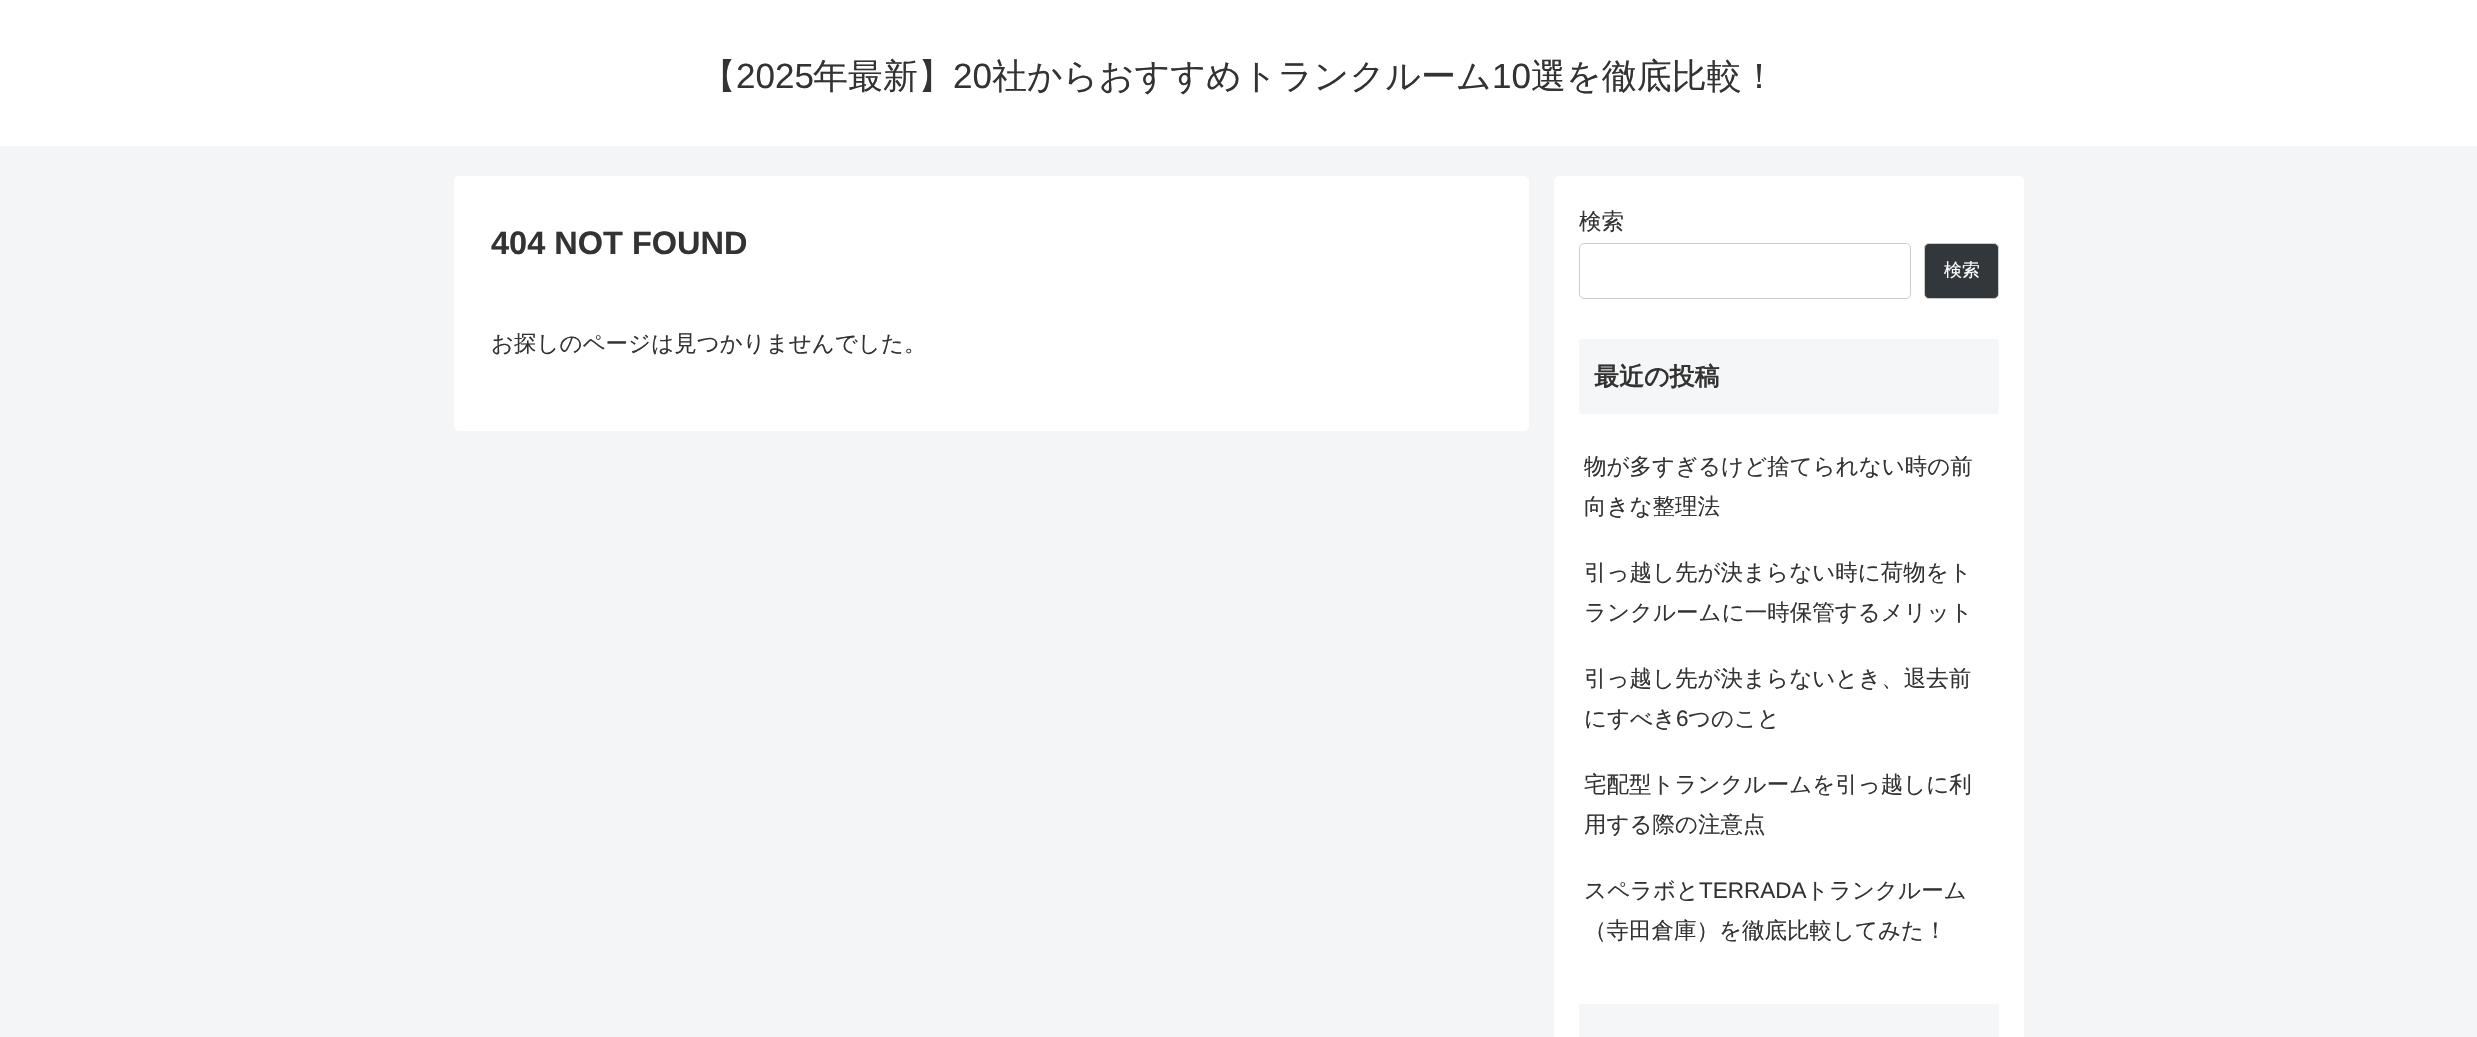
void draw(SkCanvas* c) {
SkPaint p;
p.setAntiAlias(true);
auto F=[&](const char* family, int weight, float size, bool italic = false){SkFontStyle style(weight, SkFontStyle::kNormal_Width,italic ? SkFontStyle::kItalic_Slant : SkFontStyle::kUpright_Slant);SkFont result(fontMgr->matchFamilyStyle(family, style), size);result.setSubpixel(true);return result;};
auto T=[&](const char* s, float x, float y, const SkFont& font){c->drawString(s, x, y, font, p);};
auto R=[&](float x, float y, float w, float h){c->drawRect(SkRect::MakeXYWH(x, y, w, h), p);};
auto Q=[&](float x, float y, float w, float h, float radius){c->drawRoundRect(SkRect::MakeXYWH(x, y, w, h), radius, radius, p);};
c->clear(0xfff4f5f7);
p.setColor(0xffffffff);
R(0,0,2477,146);
auto f1 = F("WenQuanYi Zen Hei",500,35);
p.setColor(0xff333333);
T("【",701,88,f1);
auto f2 = F("Liberation Sans",400,35);
T("2025",736,88,f2);
T("年最新】",813,88,f1);
T("20",953,88,f2);
T("社からおすすめトランクルーム",992,88,f1);
T("10",1492,88,f2);
T("選を徹底比較！",1531,88,f1);
p.setColor(0xffffffff);
Q(454,176,1075,255,5);
auto f3 = F("Liberation Sans",700,32.5);
p.setColor(0xff333333);
T("404 NOT FOUND",491,254,f3);
auto f4 = F("WenQuanYi Zen Hei",500,22.5);
T("お探しのページは見つかりませんでした。",491,351,f4);
p.setColor(0xffffffff);
Q(1554,176,470,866,5);
p.setColor(0xff333333);
T("検索",1579,229,f4);
p.setStroke(true);
p.setStrokeWidth(1);
p.setColor(0xffcccccc);
c->drawRoundRect(SkRect::MakeXYWH(1579.5,243.5,331,55),4.5,4.5,p);
p.setStroke(false);
p.setColor(0xff32373c);
c->drawRoundRect(SkRect::MakeXYWH(1924.5,243.5,74,55),4.5,4.5,p);
p.setStroke(true);
p.setColor(0xffcccccc);
c->drawRoundRect(SkRect::MakeXYWH(1924.5,243.5,74,55),4.5,4.5,p);
auto f5 = F("WenQuanYi Zen Hei",500,18);
p.setStroke(false);
p.setColor(0xffffffff);
T("検索",1944,276,f5);
p.setColor(0xfff5f6f7);
Q(1579,339,420,75,2.5);
auto f6 = F("WenQuanYi Zen Hei",700,25);
p.setColor(0xff333333);
T("最近の投稿",1594,385,f6);
T("物が多すぎるけど捨てられない時の前",1584,474,f4);
T("向きな整理法",1584,514,f4);
T("引っ越し先が決まらない時に荷物をト",1584,580,f4);
T("ランクルームに一時保管するメリット",1584,620,f4);
T("引っ越し先が決まらないとき、退去前",1584,686,f4);
T("にすべき",1584,726,f4);
auto f7 = F("Liberation Sans",400,22.5);
T("6",1676,726,f7);
T("つのこと",1688,726,f4);
T("宅配型トランクルームを引っ越しに利",1584,792,f4);
T("用する際の注意点",1584,832,f4);
T("スペラボと",1584,898,f4);
T("TERRADA",1699,898,f7);
T("トランクルーム",1806,898,f4);
T("（寺田倉庫）を徹底比較してみた！",1584,938,f4);
p.setColor(0xfff5f6f7);
Q(1579,1004,420,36,2.5);
}
